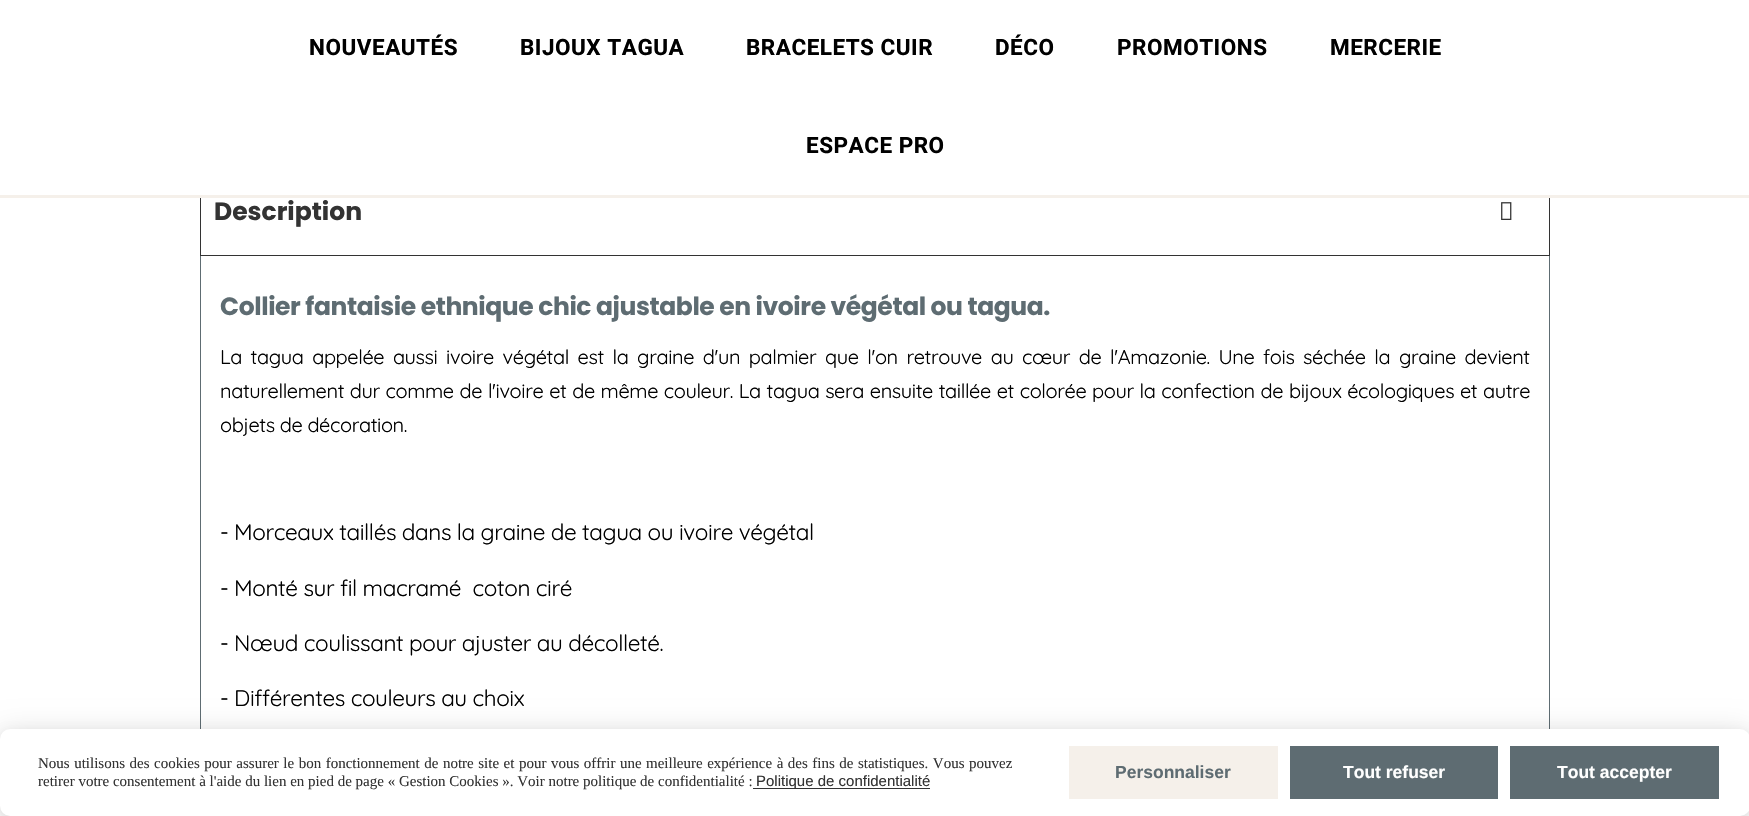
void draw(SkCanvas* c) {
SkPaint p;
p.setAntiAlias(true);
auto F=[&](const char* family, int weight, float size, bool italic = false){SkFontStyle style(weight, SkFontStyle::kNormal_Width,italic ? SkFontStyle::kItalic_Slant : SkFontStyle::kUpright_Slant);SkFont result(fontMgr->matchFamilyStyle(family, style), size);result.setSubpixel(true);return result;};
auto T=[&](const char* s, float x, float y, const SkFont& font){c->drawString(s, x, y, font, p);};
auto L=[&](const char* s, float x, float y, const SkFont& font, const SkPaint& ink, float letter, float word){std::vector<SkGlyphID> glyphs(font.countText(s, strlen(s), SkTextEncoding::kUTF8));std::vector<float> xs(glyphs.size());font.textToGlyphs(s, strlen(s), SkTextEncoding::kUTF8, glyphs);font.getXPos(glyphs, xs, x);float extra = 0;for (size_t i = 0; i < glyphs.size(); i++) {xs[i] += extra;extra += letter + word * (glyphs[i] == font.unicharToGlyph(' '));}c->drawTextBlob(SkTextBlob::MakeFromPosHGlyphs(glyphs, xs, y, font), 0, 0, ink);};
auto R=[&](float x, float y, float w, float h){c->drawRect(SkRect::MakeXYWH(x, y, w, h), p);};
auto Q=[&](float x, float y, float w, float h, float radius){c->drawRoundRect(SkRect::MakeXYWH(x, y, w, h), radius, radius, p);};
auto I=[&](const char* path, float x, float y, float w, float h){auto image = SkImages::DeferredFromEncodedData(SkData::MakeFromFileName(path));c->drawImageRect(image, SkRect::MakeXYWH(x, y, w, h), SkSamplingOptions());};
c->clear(0xffffffff);
p.setStroke(true);
p.setStrokeWidth(1);
p.setColor(0xff333333);
c->drawRect(SkRect::MakeXYWH(200.5,166.5,1349,89),p);
p.setStroke(false);
p.setColor(0xffffffff);
R(200,166,1350,29);
p.setColor(0xfff5f0ea);
R(0,195,1749,3);
auto f1 = F("Heebo",700,22.5);
p.setColor(0xff000000);
L("NOUVEAUTÉS",309,55,f1,p,.5,0);
L("BIJOUX TAGUA",520,55,f1,p,.5,0);
L("BRACELETS CUIR",746,55,f1,p,.5,0);
L("DÉCO",995,55,f1,p,.5,0);
L("PROMOTIONS",1117,55,f1,p,.5,0);
L("MERCERIE",1330,55,f1,p,.5,0);
L("ESPACE PRO",806,153,f1,p,.5,0);
auto f2 = F("Poppins",700,25);
p.setColor(0xff333333);
T("Description",214,220,f2);
I("1.png",1501,202,11,18);
p.setColor(0xff5e6c72);
R(1549,256,1,473);
R(200,256,1,473);
L("Collier fantaisie ethnique chic ajustable en ivoire végétal ou tagua.",220,315,f2,p,-.4,0);
auto f3 = F("Quicksand",300,20);
p.setColor(0xff000000);
L("La tagua appelée aussi ivoire végétal est la graine d'un palmier que l'on retrouve au cœur de l'Amazonie. Une fois séchée la graine devient",220,364,f3,p,-.4,3.6);
L("naturellement dur comme de l'ivoire et de même couleur. La tagua sera ensuite taillée et colorée pour la confection de bijoux écologiques et autre",220,398,f3,p,-.4,.7);
L("objets de décoration.",220,432,f3,p,-.4,0);
auto f4 = F("Quicksand",300,22.5);
L("- Morceaux taillés dans la graine de tagua ou ivoire végétal",220,540,f4,p,-.4,0);
L("- Monté sur fil macramé  coton ciré",220,596,f4,p,-.4,0);
L("- Nœud coulissant pour ajuster au décolleté.",220,651,f4,p,-.4,0);
L("- Différentes couleurs au choix",220,706,f4,p,-.4,0);
p.setColor(0x0d000000);
p.setMaskFilter(SkMaskFilter::MakeBlur(kNormal_SkBlurStyle, 4));
c->drawRoundRect(SkRect::MakeXYWH(0,731,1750,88),10,10,p);
p.setMaskFilter(nullptr);
p.setColor(0x26000000);
p.setMaskFilter(SkMaskFilter::MakeBlur(kNormal_SkBlurStyle, 15));
c->drawRoundRect(SkRect::MakeXYWH(0,734,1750,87),10,10,p);
p.setMaskFilter(nullptr);
p.setColor(0xffffffff);
Q(0,729,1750,87,10);
auto f5 = F("Liberation Serif",400,15);
p.setColor(0xff333333);
L("Nous utilisons des cookies pour assurer le bon fonctionnement de notre site et pour vous offrir une meilleure expérience à des fins de statistiques. Vous pouvez",38,768,f5,p,0,.75);
T("retirer votre consentement à l'aide du lien en pied de page « Gestion Cookies ». Voir notre politique de confidentialité :",38,786,f5);
R(753,788,177,1);
auto f6 = F("Liberation Sans",400,15);
T("Politique de confidentialité",756,786,f6);
p.setColor(0xfff5f0ea);
R(1069,746,209,53);
auto f7 = F("Liberation Sans",700,17.5);
p.setColor(0xff5e6c72);
T("Personnaliser",1115,778,f7);
R(1290,746,208,53);
p.setColor(0xffffffff);
T("Tout refuser",1343,778,f7);
p.setColor(0xff5e6c72);
R(1510,746,209,53);
p.setColor(0xffffffff);
T("Tout accepter",1557,778,f7);
}
